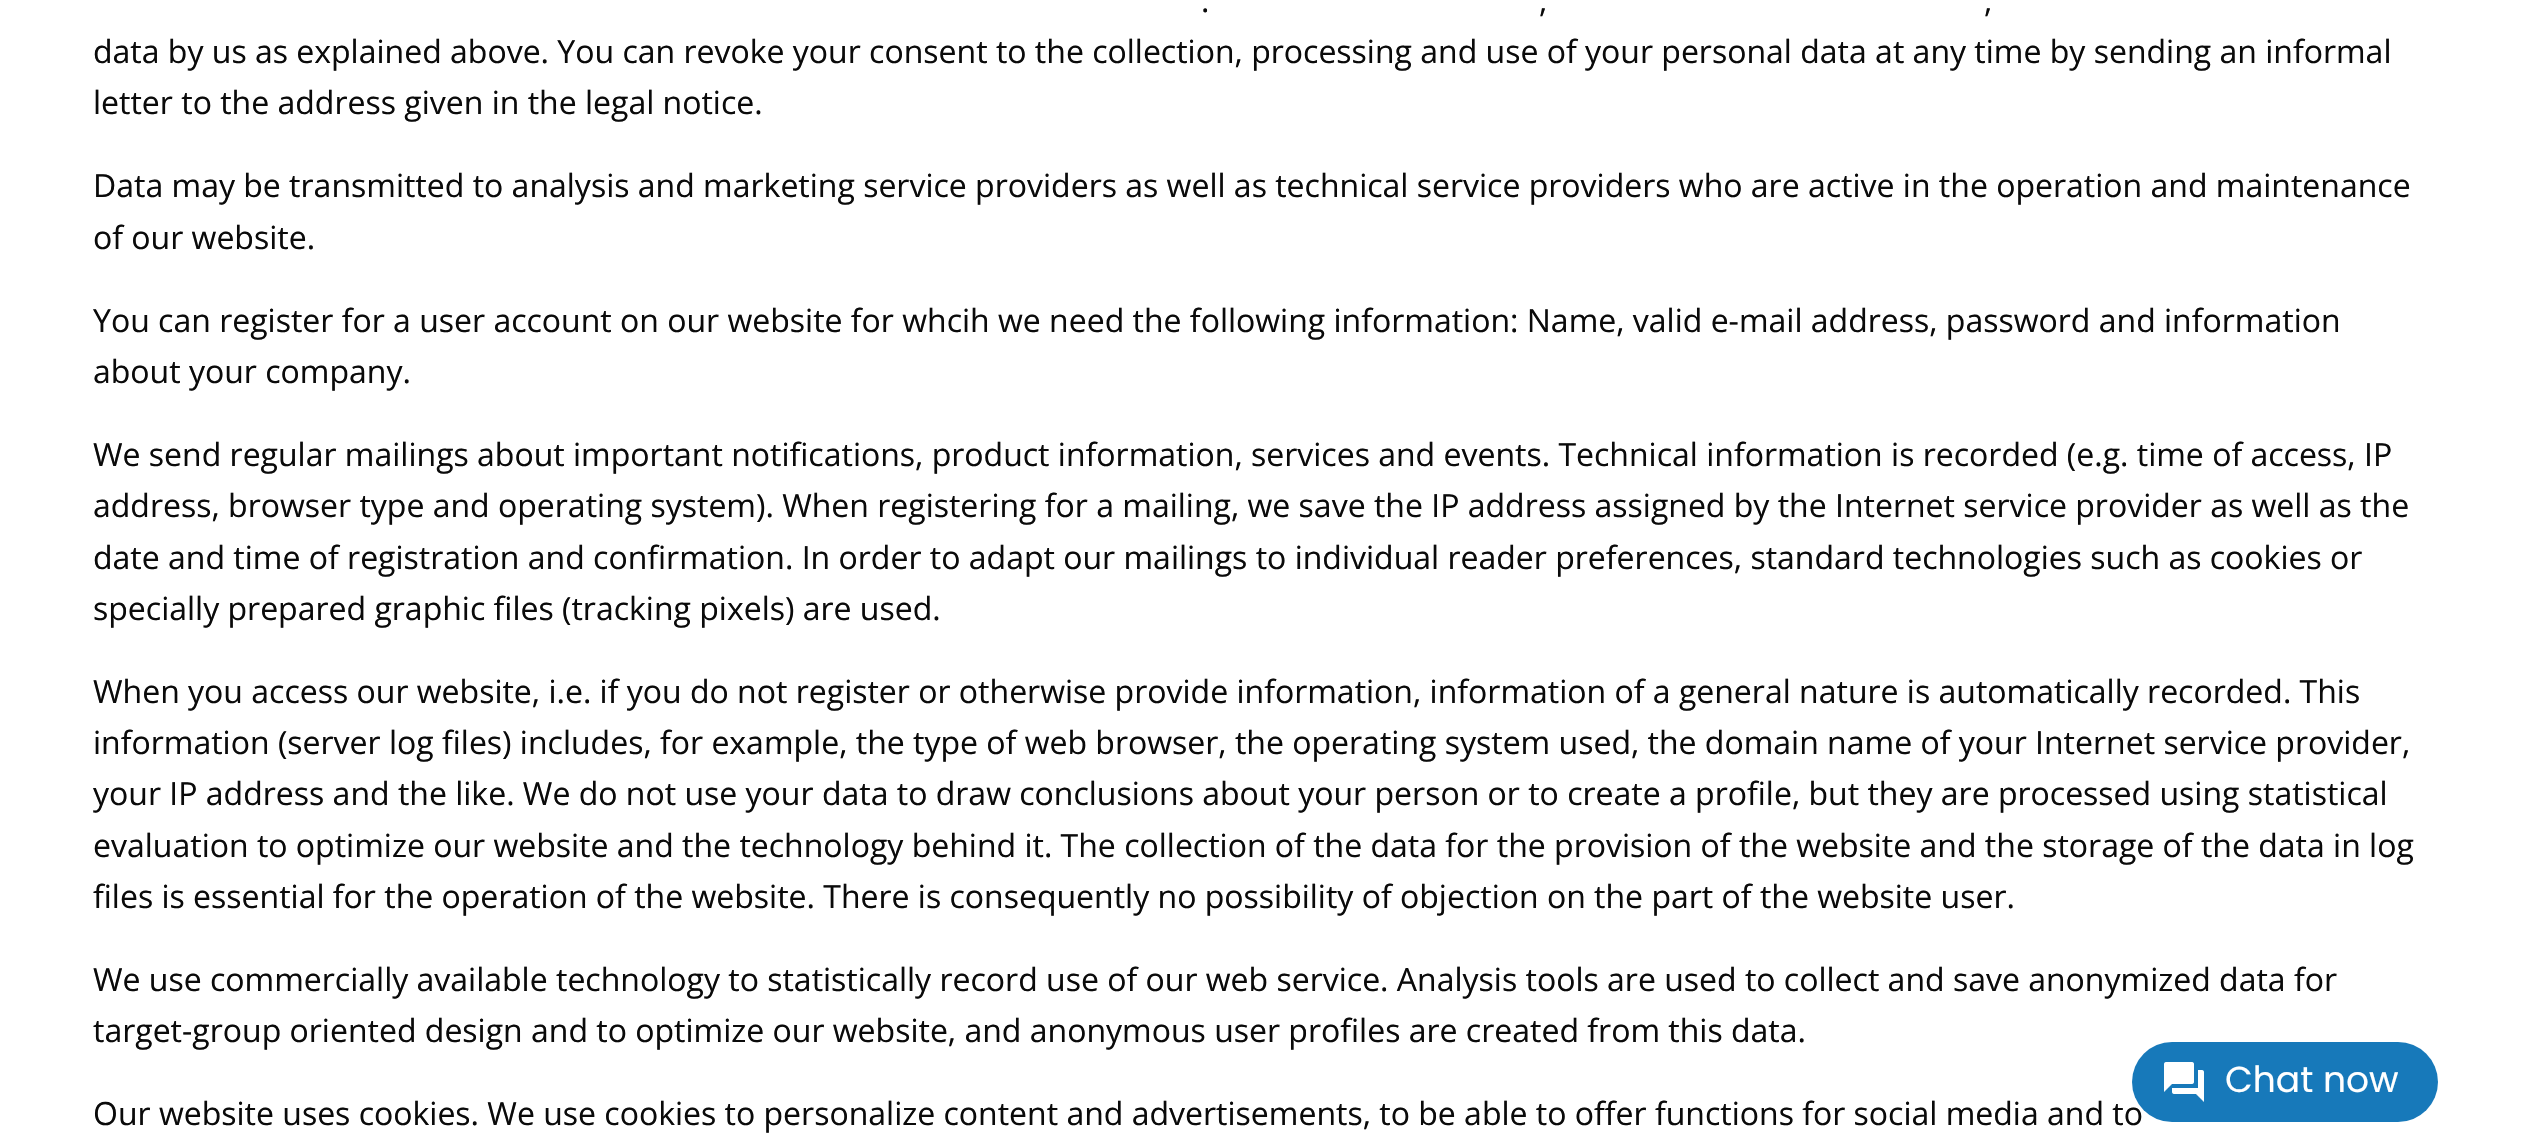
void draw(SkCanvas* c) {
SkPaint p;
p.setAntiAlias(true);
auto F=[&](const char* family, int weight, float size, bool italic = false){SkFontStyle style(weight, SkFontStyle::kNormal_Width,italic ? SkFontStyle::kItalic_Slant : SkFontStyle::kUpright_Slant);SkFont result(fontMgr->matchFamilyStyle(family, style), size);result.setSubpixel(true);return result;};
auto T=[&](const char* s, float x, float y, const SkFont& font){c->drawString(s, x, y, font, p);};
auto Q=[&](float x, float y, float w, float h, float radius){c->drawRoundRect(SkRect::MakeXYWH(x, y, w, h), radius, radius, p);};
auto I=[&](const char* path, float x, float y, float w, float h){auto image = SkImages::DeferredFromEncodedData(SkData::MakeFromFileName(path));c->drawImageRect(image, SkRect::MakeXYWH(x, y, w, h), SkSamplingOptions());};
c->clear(0xffffffff);
auto f1 = F("Open Sans",400,32);
p.setColor(0xff0a0a0a);
T(".",1201,12,f1);
T(",",1539,12,f1);
T(",",1984,12,f1);
T("data by us as explained above. You can revoke your consent to the collection, processing and use of your personal data at any time by sending an informal",93,63,f1);
T("letter to the address given in the legal notice.",93,114,f1);
T("Data may be transmitted to analysis and marketing service providers as well as technical service providers who are active in the operation and maintenance",93,197,f1);
T("of our website.",93,249,f1);
T("You can register for a user account on our website for whcih we need the following information: Name, valid e-mail address, password and information",93,332,f1);
T("about your company.",93,383,f1);
T("We send regular mailings about important notifications, product information, services and events. Technical information is recorded (e.g. time of access, IP",93,466,f1);
T("address, browser type and operating system). When registering for a mailing, we save the IP address assigned by the Internet service provider as well as the",93,517,f1);
T("date and time of registration and confirmation. In order to adapt our mailings to individual reader preferences, standard technologies such as cookies or",93,569,f1);
T("specially prepared graphic files (tracking pixels) are used.",93,620,f1);
T("When you access our website, i.e. if you do not register or otherwise provide information, information of a general nature is automatically recorded. This",93,703,f1);
T("information (server log files) includes, for example, the type of web browser, the operating system used, the domain name of your Internet service provider,",93,754,f1);
T("your IP address and the like. We do not use your data to draw conclusions about your person or to create a profile, but they are processed using statistical",93,805,f1);
T("evaluation to optimize our website and the technology behind it. The collection of the data for the provision of the website and the storage of the data in log",93,857,f1);
T("files is essential for the operation of the website. There is consequently no possibility of objection on the part of the website user.",93,908,f1);
T("We use commercially available technology to statistically record use of our web service. Analysis tools are used to collect and save anonymized data for",93,991,f1);
T("target-group oriented design and to optimize our website, and anonymous user profiles are created from this data.",93,1042,f1);
T("Our website uses cookies. We use cookies to personalize content and advertisements, to be able to offer functions for social media and to",93,1125,f1);
p.setColor(0xff1779ba);
Q(2132,1042,306,80,40);
I("1.png",2164,1062,40,40);
auto f2 = F("Poppins",400,36);
p.setColor(0xffffffff);
T("Chat now",2225,1092,f2);
}
